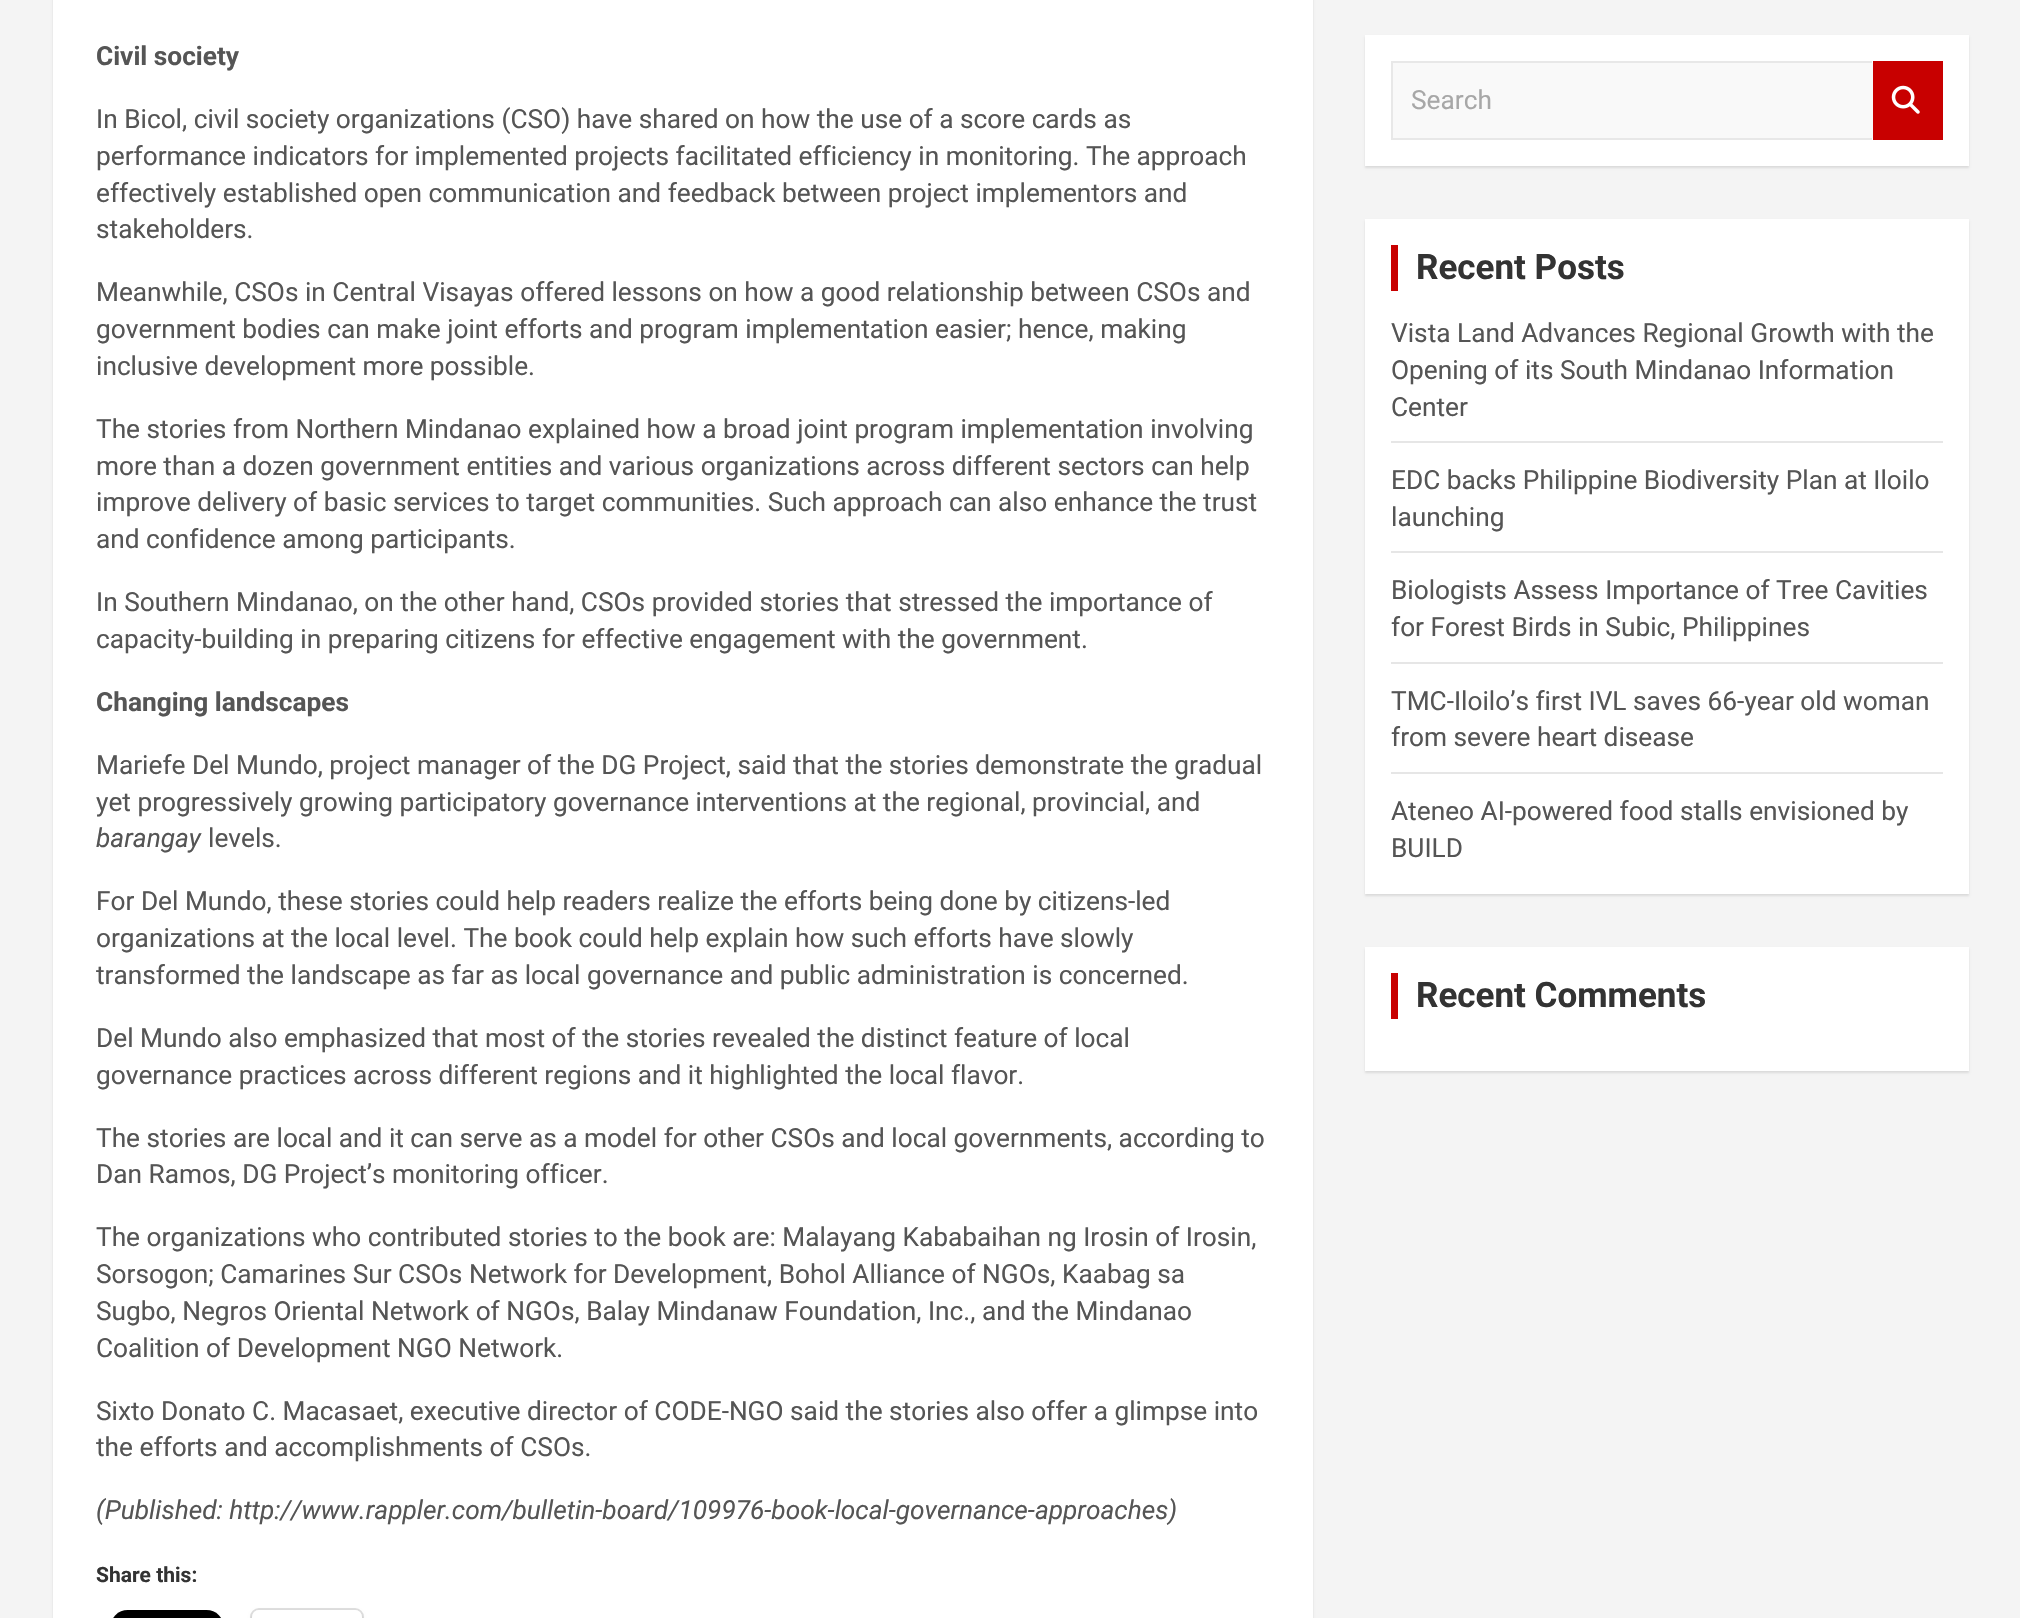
void draw(SkCanvas* c) {
SkPaint p;
p.setAntiAlias(true);
auto F=[&](const char* family, int weight, float size, bool italic = false){SkFontStyle style(weight, SkFontStyle::kNormal_Width,italic ? SkFontStyle::kItalic_Slant : SkFontStyle::kUpright_Slant);SkFont result(fontMgr->matchFamilyStyle(family, style), size);result.setSubpixel(true);return result;};
auto T=[&](const char* s, float x, float y, const SkFont& font){c->drawString(s, x, y, font, p);};
auto R=[&](float x, float y, float w, float h){c->drawRect(SkRect::MakeXYWH(x, y, w, h), p);};
auto Q=[&](float x, float y, float w, float h, float radius){c->drawRoundRect(SkRect::MakeXYWH(x, y, w, h), radius, radius, p);};
auto I=[&](const char* path, float x, float y, float w, float h){auto image = SkImages::DeferredFromEncodedData(SkData::MakeFromFileName(path));c->drawImageRect(image, SkRect::MakeXYWH(x, y, w, h), SkSamplingOptions());};
auto P=[&](const char* data, bool evenOdd = false){SkPath result = *SkParsePath::FromSVGString(data);if (evenOdd) result.setFillType(SkPathFillType::kEvenOdd);return result;};
c->clear(0xfff4f4f4);
p.setColor(0x1a000000);
p.setMaskFilter(SkMaskFilter::MakeBlur(kNormal_SkBlurStyle, 1));
c->drawRect(SkRect::MakeXYWH(53,-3,1260,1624),p);
p.setMaskFilter(nullptr);
p.setColor(0xffffffff);
R(53,0,1260,1618);
auto f1 = F("Roboto",700,26.25);
p.setColor(0xff555555);
T("Civil society",96,65,f1);
auto f2 = F("Roboto",400,26.25);
T("In Bicol, civil society organizations (CSO) have shared on how the use of a score cards as",96,128,f2);
T("performance indicators for implemented projects facilitated efficiency in monitoring. The approach",96,165,f2);
T("effectively established open communication and feedback between project implementors and",96,202,f2);
T("stakeholders.",96,238,f2);
T("Meanwhile, CSOs in Central Visayas offered lessons on how a good relationship between CSOs and",96,301,f2);
T("government bodies can make joint efforts and program implementation easier; hence, making",96,338,f2);
T("inclusive development more possible.",96,375,f2);
T("The stories from Northern Mindanao explained how a broad joint program implementation involving",96,438,f2);
T("more than a dozen government entities and various organizations across different sectors can help",96,475,f2);
T("improve delivery of basic services to target communities. Such approach can also enhance the trust",96,511,f2);
T("and confidence among participants.",96,548,f2);
T("In Southern Mindanao, on the other hand, CSOs provided stories that stressed the importance of",96,611,f2);
T("capacity-building in preparing citizens for effective engagement with the government.",96,648,f2);
T("Changing landscapes",96,711,f1);
T("Mariefe Del Mundo, project manager of the DG Project, said that the stories demonstrate the gradual",96,774,f2);
T("yet progressively growing participatory governance interventions at the regional, provincial, and",96,811,f2);
auto f3 = F("Roboto",400,26.25,true);
T("barangay",96,847,f3);
T("levels.",208,847,f2);
T("For Del Mundo, these stories could help readers realize the efforts being done by citizens-led",96,910,f2);
T("organizations at the local level. The book could help explain how such efforts have slowly",96,947,f2);
T("transformed the landscape as far as local governance and public administration is concerned.",96,984,f2);
T("Del Mundo also emphasized that most of the stories revealed the distinct feature of local",96,1047,f2);
T("governance practices across different regions and it highlighted the local flavor.",96,1084,f2);
T("The stories are local and it can serve as a model for other CSOs and local governments, according to",96,1147,f2);
T("Dan Ramos, DG Project’s monitoring officer.",96,1183,f2);
T("The organizations who contributed stories to the book are: Malayang Kababaihan ng Irosin of Irosin,",96,1246,f2);
T("Sorsogon; Camarines Sur CSOs Network for Development, Bohol Alliance of NGOs, Kaabag sa",96,1283,f2);
T("Sugbo, Negros Oriental Network of NGOs, Balay Mindanaw Foundation, Inc., and the Mindanao",96,1320,f2);
T("Coalition of Development NGO Network.",96,1357,f2);
T("Sixto Donato C. Macasaet, executive director of CODE-NGO said the stories also offer a glimpse into",96,1420,f2);
T("the efforts and accomplishments of CSOs.",96,1456,f2);
T("(Published: http://www.rappler.com/bulletin-board/109976-book-local-governance-approaches)",96,1519,f3);
auto f4 = F("Roboto",700,21);
p.setColor(0xff333333);
T("Share this:",96,1582,f4);
I("1.png",113,1610,108,8);
p.setStroke(true);
p.setStrokeWidth(2);
p.setColor(0xffe0e0e0);
c->drawRoundRect(SkRect::MakeXYWH(251,1609,112,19),8,8,p);
p.setStroke(false);
p.setColor(0x1f000000);
p.setMaskFilter(SkMaskFilter::MakeBlur(kNormal_SkBlurStyle, 2));
c->drawRoundRect(SkRect::MakeXYWH(252,1612,110,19),7,7,p);
p.setMaskFilter(nullptr);
p.setColor(0xffffffff);
Q(252,1610,110,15,7);
p.setColor(0x1a000000);
p.setMaskFilter(SkMaskFilter::MakeBlur(kNormal_SkBlurStyle, 1));
c->drawRect(SkRect::MakeXYWH(1365,37,604,131),p);
p.setMaskFilter(nullptr);
p.setColor(0xffffffff);
R(1365,35,604,131);
p.setColor(0xfff9f9f9);
R(1393,63,480,75);
p.setColor(0xffe8e8e8);
c->drawPath(P("M1391 61h481v2h-479z"),p);
c->drawPath(P("M1872 140h-481l2-2h479z"),p);
p.setColor(0x17000000);
c->drawPath(P("M1391 140v-79l2 2v75z"),p);
p.setColor(0xffa7a7a7);
T("Search",1411,109,f2);
p.setColor(0xffc80000);
R(1873,61,70,79);
I("2.png",1891,85,29,29);
p.setColor(0x1a000000);
p.setMaskFilter(SkMaskFilter::MakeBlur(kNormal_SkBlurStyle, 1));
c->drawRect(SkRect::MakeXYWH(1365,221,604,675),p);
p.setMaskFilter(nullptr);
p.setColor(0xffffffff);
R(1365,219,604,675);
p.setColor(0xffc80000);
R(1391,245,7,46);
auto f5 = F("Roboto",700,35);
p.setColor(0xff333333);
T("Recent Posts",1416,279,f5);
p.setColor(0xffe6e6e6);
R(1391,441,552,2);
p.setColor(0xff555555);
T("Vista Land Advances Regional Growth with the",1391,342,f2);
T("Opening of its South Mindanao Information",1391,379,f2);
T("Center",1391,416,f2);
p.setColor(0xffe6e6e6);
R(1391,551,552,2);
p.setColor(0xff555555);
T("EDC backs Philippine Biodiversity Plan at Iloilo",1391,489,f2);
T("launching",1391,526,f2);
p.setColor(0xffe6e6e6);
R(1391,662,552,2);
p.setColor(0xff555555);
T("Biologists Assess Importance of Tree Cavities",1391,599,f2);
T("for Forest Birds in Subic, Philippines",1391,636,f2);
p.setColor(0xffe6e6e6);
R(1391,772,552,2);
p.setColor(0xff555555);
T("TMC-Iloilo’s first IVL saves 66-year old woman",1391,710,f2);
T("from severe heart disease",1391,746,f2);
T("Ateneo AI-powered food stalls envisioned by",1391,820,f2);
T("BUILD",1391,857,f2);
p.setColor(0x1a000000);
p.setMaskFilter(SkMaskFilter::MakeBlur(kNormal_SkBlurStyle, 1));
c->drawRect(SkRect::MakeXYWH(1365,949,604,124),p);
p.setMaskFilter(nullptr);
p.setColor(0xffffffff);
R(1365,947,604,124);
p.setColor(0xffc80000);
R(1391,973,7,46);
p.setColor(0xff333333);
T("Recent Comments",1416,1007,f5);
}
